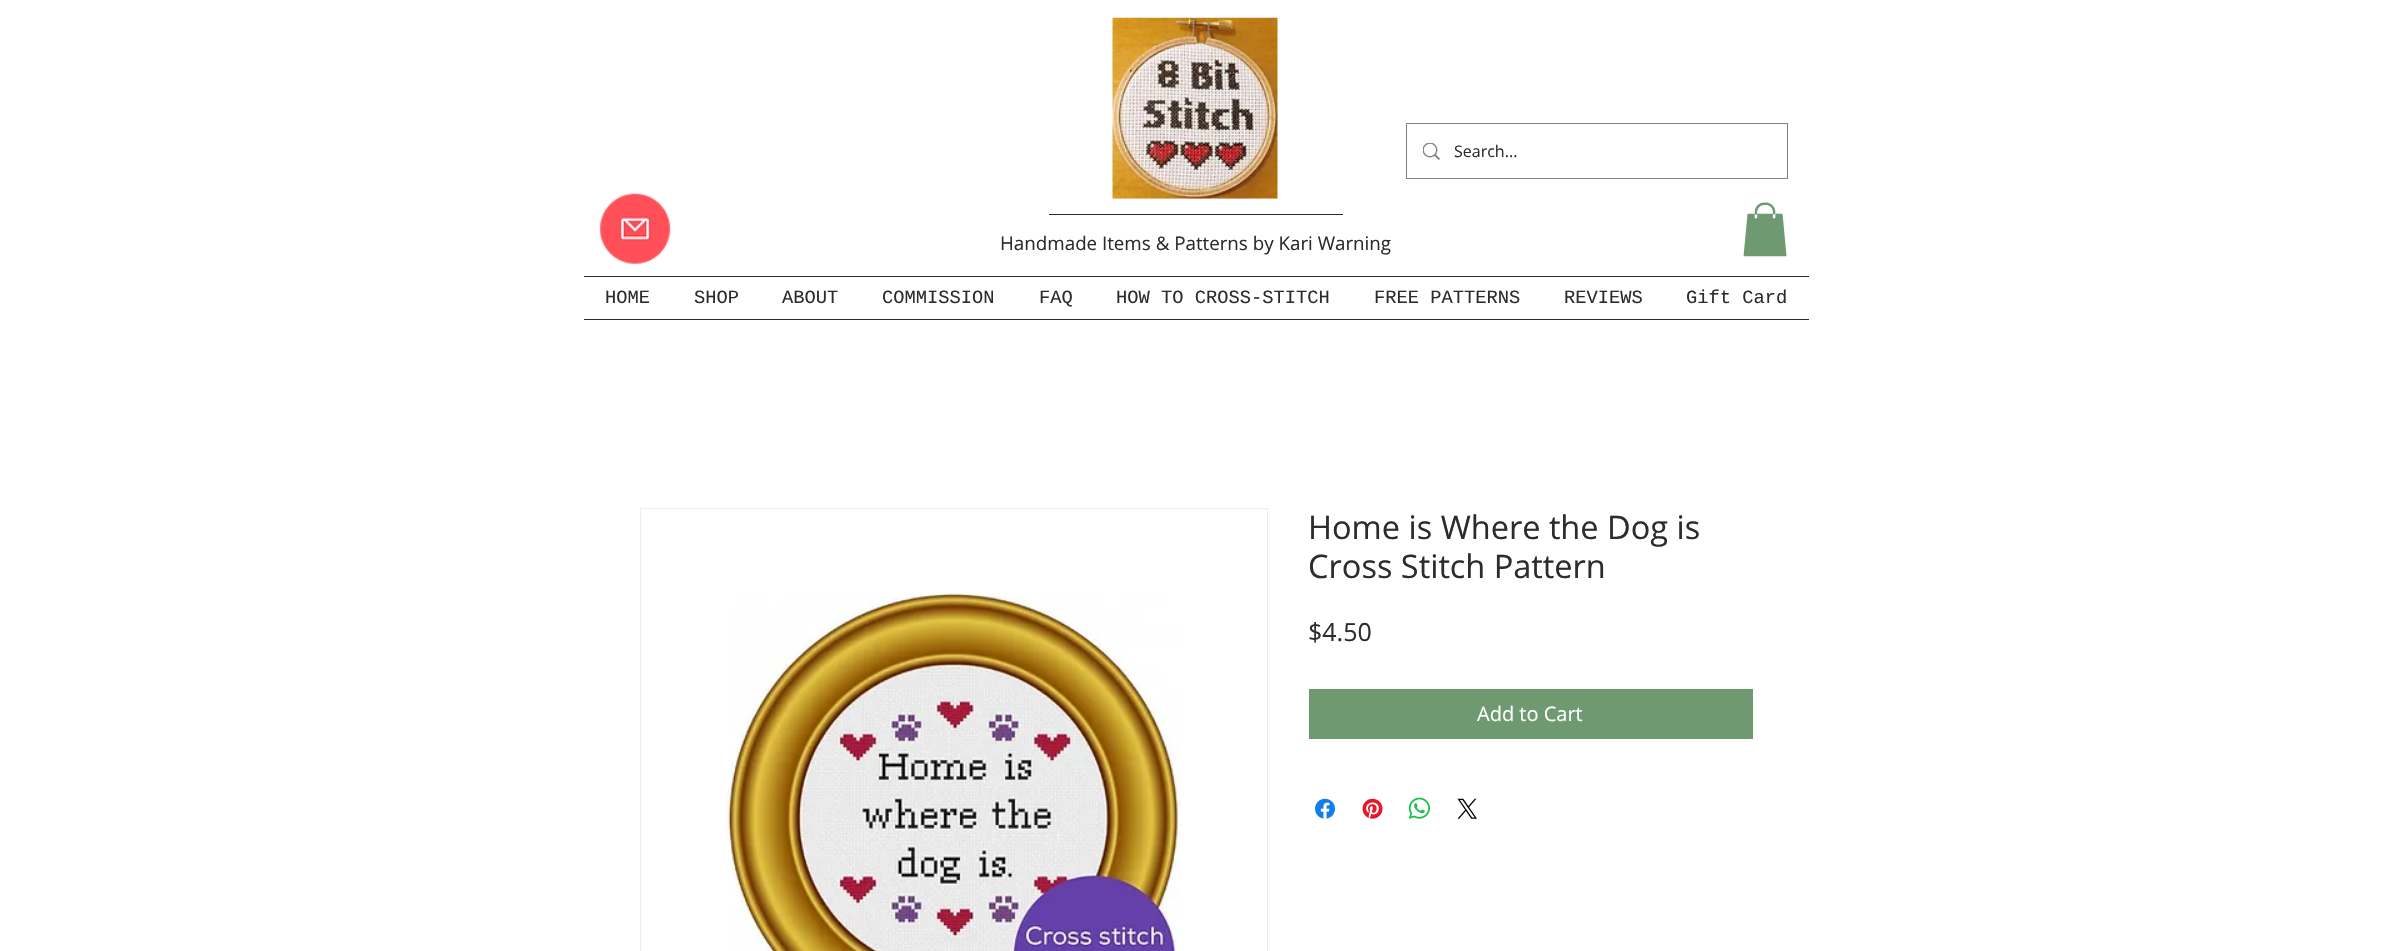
void draw(SkCanvas* c) {
SkPaint p;
p.setAntiAlias(true);
auto F=[&](const char* family, int weight, float size, bool italic = false){SkFontStyle style(weight, SkFontStyle::kNormal_Width,italic ? SkFontStyle::kItalic_Slant : SkFontStyle::kUpright_Slant);SkFont result(fontMgr->matchFamilyStyle(family, style), size);result.setSubpixel(true);return result;};
auto T=[&](const char* s, float x, float y, const SkFont& font){c->drawString(s, x, y, font, p);};
auto R=[&](float x, float y, float w, float h){c->drawRect(SkRect::MakeXYWH(x, y, w, h), p);};
auto I=[&](const char* path, float x, float y, float w, float h){auto image = SkImages::DeferredFromEncodedData(SkData::MakeFromFileName(path));c->drawImageRect(image, SkRect::MakeXYWH(x, y, w, h), SkSamplingOptions());};
c->clear(0xffffffff);
I("1.png",1112,17,166,182);
p.setStroke(true);
p.setStrokeWidth(1);
p.setColor(0xff808080);
c->drawRect(SkRect::MakeXYWH(1406.5,123.5,381,55),p);
I("2.png",1423,143,17,17);
auto f1 = F("Open Sans",400,16);
p.setStroke(false);
p.setColor(0xff2c2c2b);
T("Search...",1454,157,f1);
I("3.png",599,193,72,71);
R(1049,214,294,1);
I("4.png",1743,202,44,55);
auto f2 = F("Open Sans",400,18.75);
T("Handmade Items & Patterns by Kari Warning",1000,250,f2);
R(584,276,1225,1);
R(584,319,1225,1);
auto f3 = F("Liberation Mono",400,18.75);
T("HOME",605,303,f3);
T("SHOP",694,303,f3);
T("ABOUT",782,303,f3);
T("COMMISSION",882,303,f3);
T("FAQ",1039,303,f3);
T("HOW TO CROSS-STITCH",1116,303,f3);
T("FREE PATTERNS",1374,303,f3);
T("REVIEWS",1564,303,f3);
T("Gift Card",1686,303,f3);
p.setStroke(true);
p.setColor(0xffededec);
c->drawRect(SkRect::MakeXYWH(640.5,508.5,627,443),p);
I("5.png",726,592,455,359);
auto f4 = F("Open Sans",400,32.5);
p.setStroke(false);
p.setColor(0xff2c2c2b);
T("Home is Where the Dog is",1308,539,f4);
T("Cross Stitch Pattern",1308,578,f4);
auto f5 = F("Open Sans",400,25);
T("$4.50",1308,641,f5);
p.setColor(0xff6f9971);
R(1309,689,444,50);
auto f6 = F("Open Sans",400,20);
p.setColor(0xffffffff);
T("Add to Cart",1477,721,f6);
I("6.png",1315,798,20,21);
I("7.png",1362,798,21,21);
I("8.png",1408,797,22,22);
I("9.png",1457,798,20,21);
}
